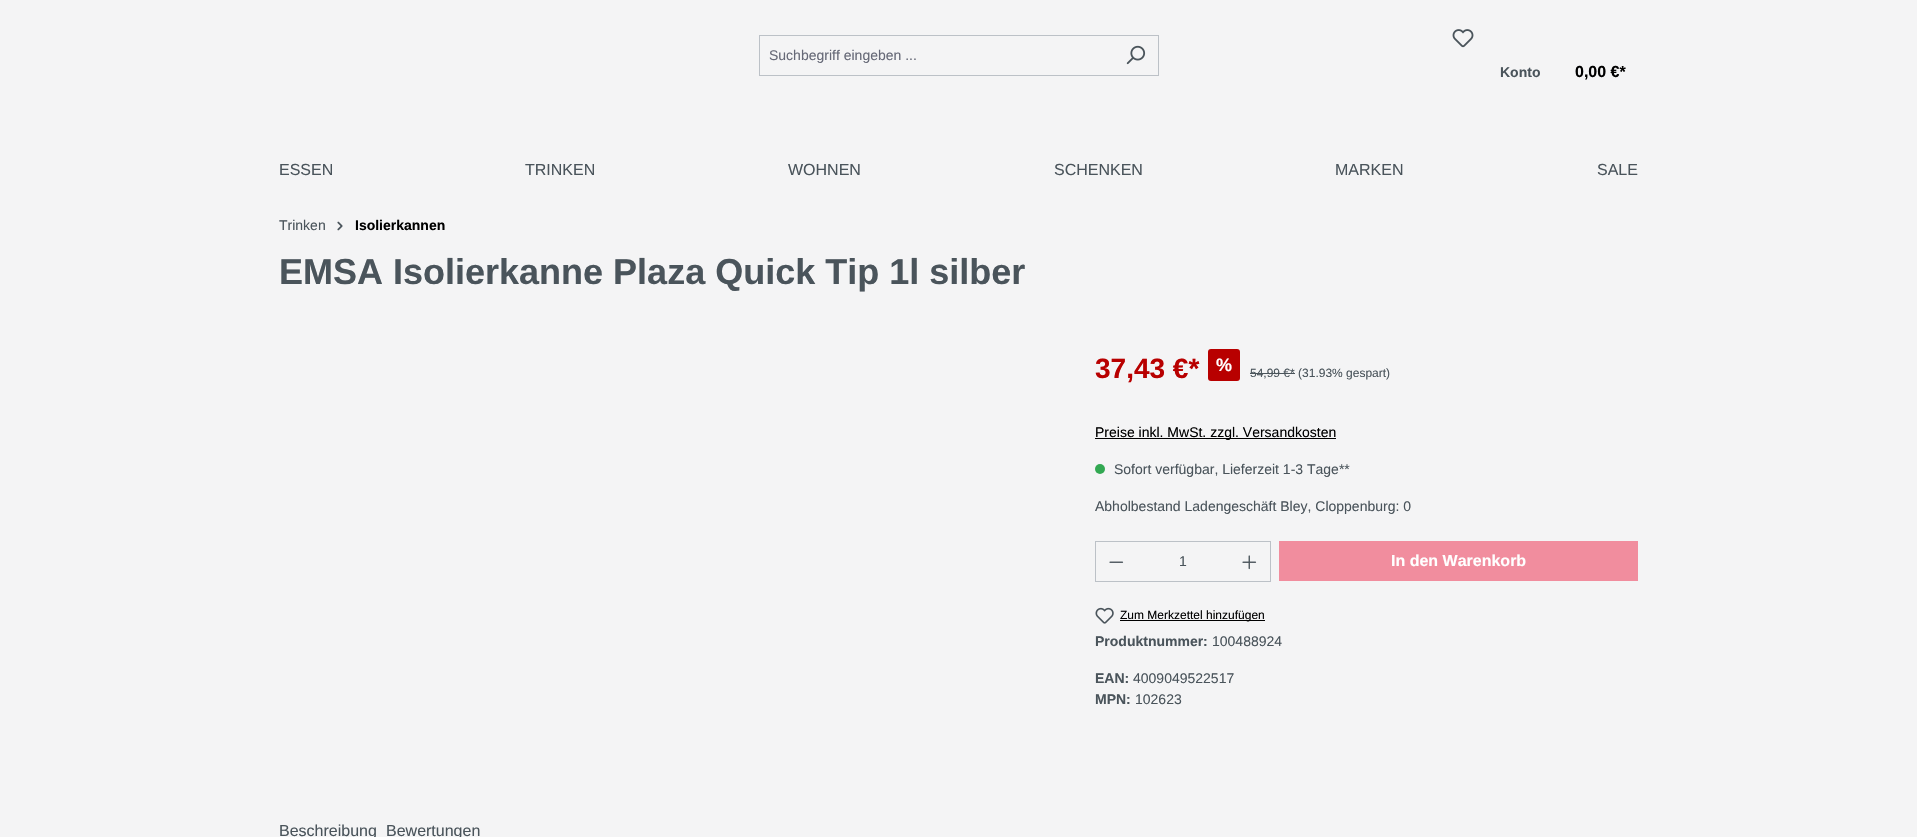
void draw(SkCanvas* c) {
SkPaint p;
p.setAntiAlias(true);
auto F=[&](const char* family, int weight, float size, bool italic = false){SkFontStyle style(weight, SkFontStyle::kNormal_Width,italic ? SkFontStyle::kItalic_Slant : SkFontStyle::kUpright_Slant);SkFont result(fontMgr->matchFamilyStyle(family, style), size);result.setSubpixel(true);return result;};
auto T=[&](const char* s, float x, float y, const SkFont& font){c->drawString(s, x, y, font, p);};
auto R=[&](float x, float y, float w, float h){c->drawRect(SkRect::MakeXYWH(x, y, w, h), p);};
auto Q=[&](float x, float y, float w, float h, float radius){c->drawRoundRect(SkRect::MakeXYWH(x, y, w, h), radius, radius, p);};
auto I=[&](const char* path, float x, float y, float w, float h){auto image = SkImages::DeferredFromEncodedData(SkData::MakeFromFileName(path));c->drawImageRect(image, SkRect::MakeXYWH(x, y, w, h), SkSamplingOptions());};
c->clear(0xfff4f4f5);
p.setColor(0xffbcc1c7);
R(759,35,400,1);
R(759,75,354,1);
R(759,35,1,41);
auto f1 = F("Liberation Sans",400,14);
p.setColor(0xff666977);
T("Suchbegriff eingeben ...",769,60,f1);
p.setColor(0xffbcc1c7);
R(1158,35,1,41);
R(1112,75,47,1);
I("1.png",1126,45,20,20);
I("2.png",1452,29,22,19);
auto f2 = F("Liberation Sans",700,14);
p.setColor(0xff4a545b);
T("Konto",1500,77,f2);
auto f3 = F("Liberation Sans",700,16);
p.setColor(0xff000000);
T("0,00 €*",1575,77,f3);
auto f4 = F("Liberation Sans",400,16);
p.setColor(0xff4a545b);
T("ESSEN",279,175,f4);
T("TRINKEN",525,175,f4);
T("WOHNEN",788,175,f4);
T("SCHENKEN",1054,175,f4);
T("MARKEN",1335,175,f4);
T("SALE",1597,175,f4);
T("Trinken",279,230,f1);
I("3.png",337,221,6,10);
p.setColor(0xff000000);
T("Isolierkannen",355,230,f2);
auto f5 = F("Liberation Sans",700,36);
p.setColor(0xff4a545b);
T("EMSA Isolierkanne Plaza Quick Tip 1l silber",279,284,f5);
auto f6 = F("Liberation Sans",700,28);
p.setColor(0xffb80000);
T("37,43 €*",1095,378,f6);
Q(1208,349,32,32,3);
auto f7 = F("Liberation Sans",700,18);
p.setColor(0xffffffff);
T("%",1216,371,f7);
auto f8 = F("Liberation Sans",400,12);
p.setColor(0xff4a545b);
T("54,99 €* (31.93% gespart)",1250,377,f8);
R(1250,373,45,1);
p.setColor(0xff000000);
R(1095,438,241,1);
T("Preise inkl. MwSt. zzgl. Versandkosten",1095,437,f1);
p.setColor(0xff32a852);
c->drawCircle(1100,469,5,p);
p.setColor(0xff4a545b);
T("Sofort verfügbar, Lieferzeit 1-3 Tage**",1114,474,f1);
T("Abholbestand Ladengeschäft Bley, Cloppenburg: 0",1095,511,f1);
p.setColor(0xffbcc1c7);
R(1095,541,176,1);
R(1095,581,135,1);
R(1095,541,1,41);
I("4.png",1109,561,15,2);
p.setColor(0xff4a545b);
T("1",1179,566,f1);
p.setColor(0xffbcc1c7);
R(1270,541,1,41);
R(1229,581,42,1);
I("5.png",1242,555,15,15);
p.setColor(0xfff18d9e);
R(1279,541,359,40);
p.setColor(0xffffffff);
T("In den Warenkorb",1391,566,f3);
I("6.png",1095,607,19,17);
p.setColor(0xff000000);
R(1120,620,145,1);
T("Zum Merkzettel hinzufügen",1120,619,f8);
p.setColor(0xff4a545b);
T("Produktnummer:",1095,646,f2);
T("100488924",1212,646,f1);
T("EAN:",1095,683,f2);
T("4009049522517",1133,683,f1);
T("MPN:",1095,704,f2);
T("102623",1135,704,f1);
T("Beschreibung",279,836,f4);
T("Bewertungen",386,836,f4);
}
